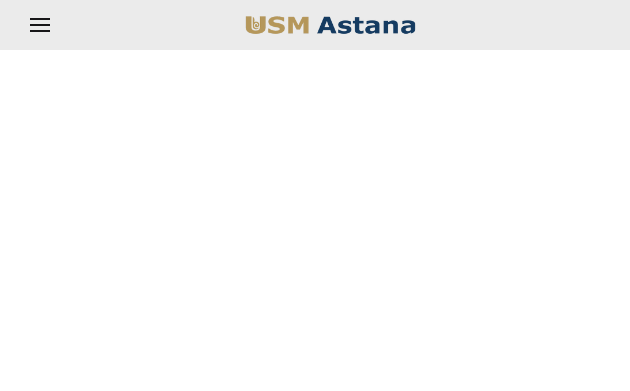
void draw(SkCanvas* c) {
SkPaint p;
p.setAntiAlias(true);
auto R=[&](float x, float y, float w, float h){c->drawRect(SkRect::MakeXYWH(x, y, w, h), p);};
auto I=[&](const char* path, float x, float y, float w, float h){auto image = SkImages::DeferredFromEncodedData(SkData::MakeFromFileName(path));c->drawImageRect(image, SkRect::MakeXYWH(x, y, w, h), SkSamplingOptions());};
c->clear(0xffffffff);
p.setColor(0xffebebeb);
R(0,0,630,50);
p.setColor(0xff171618);
R(30,18,20,2);
R(30,24,20,2);
R(30,30,20,2);
I("1.png",245,16,171,18);
}
